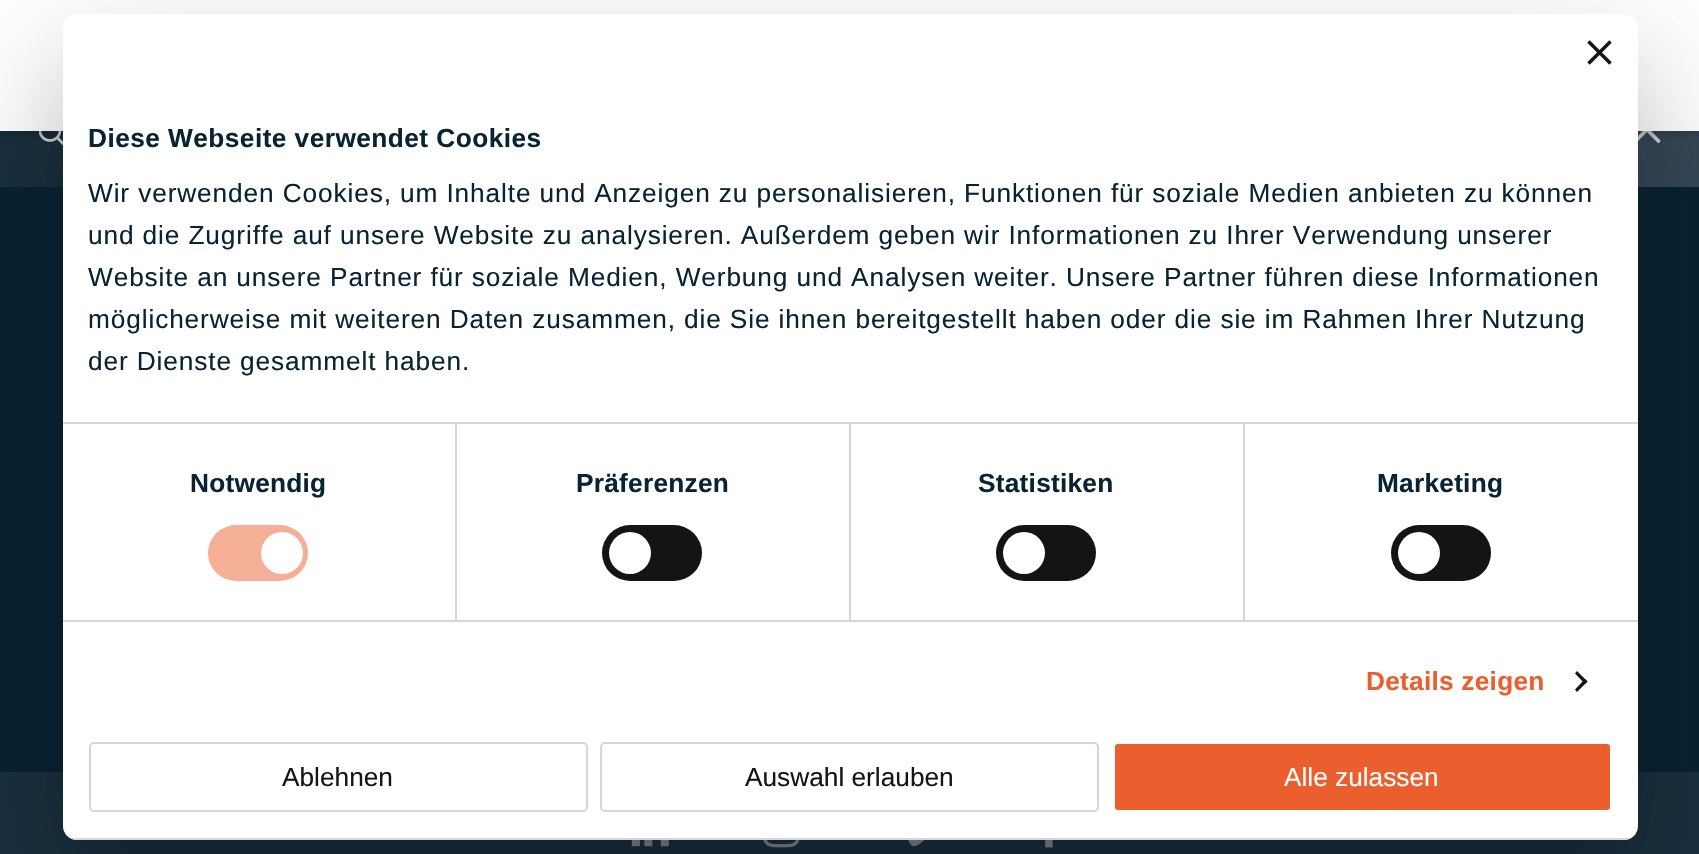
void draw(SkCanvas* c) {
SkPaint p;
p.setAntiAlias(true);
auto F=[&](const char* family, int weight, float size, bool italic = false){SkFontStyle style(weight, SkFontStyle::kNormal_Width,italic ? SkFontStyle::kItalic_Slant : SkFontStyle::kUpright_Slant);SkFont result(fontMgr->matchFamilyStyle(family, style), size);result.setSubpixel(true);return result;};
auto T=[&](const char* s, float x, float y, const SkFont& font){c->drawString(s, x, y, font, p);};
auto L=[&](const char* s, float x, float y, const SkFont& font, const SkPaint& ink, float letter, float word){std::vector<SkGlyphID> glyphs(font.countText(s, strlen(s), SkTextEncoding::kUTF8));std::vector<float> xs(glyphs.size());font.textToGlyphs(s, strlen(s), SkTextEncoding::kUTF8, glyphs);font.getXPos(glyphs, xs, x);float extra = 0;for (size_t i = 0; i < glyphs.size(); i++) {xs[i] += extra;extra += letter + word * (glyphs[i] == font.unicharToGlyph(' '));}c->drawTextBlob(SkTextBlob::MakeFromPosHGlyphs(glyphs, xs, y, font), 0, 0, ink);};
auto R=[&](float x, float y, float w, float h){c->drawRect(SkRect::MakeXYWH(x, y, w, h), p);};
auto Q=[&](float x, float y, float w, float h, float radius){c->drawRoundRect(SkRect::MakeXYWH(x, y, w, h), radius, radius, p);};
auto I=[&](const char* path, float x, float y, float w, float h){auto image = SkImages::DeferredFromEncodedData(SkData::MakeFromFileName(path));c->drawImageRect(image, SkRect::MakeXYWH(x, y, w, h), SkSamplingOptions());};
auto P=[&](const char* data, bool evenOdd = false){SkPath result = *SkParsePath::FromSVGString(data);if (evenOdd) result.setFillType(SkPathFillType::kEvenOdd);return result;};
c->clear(0xff082332);
p.setColor(0xff192f3e);
R(0,131,63,56);
I("1.png",39,131,24,15);
p.setColor(0xff354757);
R(1638,131,61,56);
p.setStroke(true);
p.setStrokeWidth(3.8);
p.setStrokeCap(SkPaint::kRound_Cap);
p.setStrokeJoin(SkPaint::kRound_Join);
p.setColor(0xffd1d5d8);
c->drawPath(P("M1658.5 141l-11.5-11.5l-11.5 11.5"),p);
p.setStroke(false);
p.setColor(0x29000000);
p.setMaskFilter(SkMaskFilter::MakeBlur(kNormal_SkBlurStyle, 3.5));
c->drawRect(SkRect::MakeXYWH(0,4,1699,131),p);
p.setMaskFilter(nullptr);
p.setColor(0xffffffff);
R(0,0,1699,131);
p.setColor(0xff192f3e);
R(0,772,1699,82);
I("2.png",631,840,38,7);
I("3.png",763,840,37,8);
I("4.png",908,840,16,7);
I("5.png",1045,840,8,8);
p.setColor(0x4d000000);
p.setMaskFilter(SkMaskFilter::MakeBlur(kNormal_SkBlurStyle, 59.5));
c->drawRoundRect(SkRect::MakeXYWH(63,70,1575,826),14,14,p);
p.setMaskFilter(nullptr);
p.setColor(0xffffffff);
Q(63,14,1575,826,14);
I("6.png",1587,40,25,25);
p.setColor(0xffd6d6d6);
R(63,422,1575,2);
auto f1 = F("Liberation Sans",700,26.25);
p.setColor(0xff082332);
L("Diese Webseite verwendet Cookies",88,147,f1,p,.45,0);
auto f2 = F("Liberation Sans",400,26.25);
L("Wir verwenden Cookies, um Inhalte und Anzeigen zu personalisieren, Funktionen für soziale Medien anbieten zu können",88,202,f2,p,.88,0);
L("und die Zugriffe auf unsere Website zu analysieren. Außerdem geben wir Informationen zu Ihrer Verwendung unserer",88,244,f2,p,.88,0);
L("Website an unsere Partner für soziale Medien, Werbung und Analysen weiter. Unsere Partner führen diese Informationen",88,286,f2,p,.88,0);
L("möglicherweise mit weiteren Daten zusammen, die Sie ihnen bereitgestellt haben oder die sie im Rahmen Ihrer Nutzung",88,328,f2,p,.88,0);
L("der Dienste gesammelt haben.",88,370,f2,p,.88,0);
p.setColor(0xffd6d6d6);
R(63,620,1575,2);
R(455,424,2,196);
p.setColor(0xff082332);
L("Notwendig",190,492,f1,p,.25,0);
p.setColor(0xfff5af96);
Q(208,525,100,56,28);
p.setColor(0xffffffff);
c->drawCircle(282,553,21,p);
p.setColor(0xffd6d6d6);
R(849,424,2,196);
p.setColor(0xff082332);
L("Präferenzen",576,492,f1,p,.25,0);
p.setColor(0xff141414);
Q(602,525,100,56,28);
p.setColor(0xffffffff);
c->drawCircle(630,553,21,p);
p.setColor(0xffd6d6d6);
R(1243,424,2,196);
p.setColor(0xff082332);
L("Statistiken",978,492,f1,p,.25,0);
p.setColor(0xff141414);
Q(996,525,100,56,28);
p.setColor(0xffffffff);
c->drawCircle(1024,553,21,p);
p.setColor(0xff082332);
L("Marketing",1377,492,f1,p,.25,0);
p.setColor(0xff141414);
Q(1391,525,100,56,28);
p.setColor(0xffffffff);
c->drawCircle(1419,553,21,p);
p.setColor(0xffeb5e2d);
L("Details zeigen",1366,690,f1,p,.25,0);
p.setColor(0xff141414);
c->drawPath(P("M1577 671l10.5 10.5l-2.5 2.5l-10-10.5z"),p);
c->drawPath(P("M1585 679l2.5 2.5l-10.5 10.5l-2-2.5z"),p);
c->save();
c->clipPath(P("M77 14h1547c7.5 0 14 6.5 14 14v798c0 7.5-6.5 14-14 14h-1547c-7.5 0-14-6.5-14-14v-798c0-7.5 6.5-14 14-14z"),true);
p.setColor(0xffd6d6d6);
R(63,838,1575,2);
c->restore();
p.setStroke(true);
p.setStrokeWidth(2);
p.setStrokeCap(SkPaint::kButt_Cap);
p.setStrokeJoin(SkPaint::kMiter_Join);
c->drawRoundRect(SkRect::MakeXYWH(90,743,497,68),4,4,p);
p.setStroke(false);
p.setColor(0xff141414);
T("Ablehnen",282,786,f2);
p.setStroke(true);
p.setColor(0xffd6d6d6);
c->drawRoundRect(SkRect::MakeXYWH(601,743,497,68),4,4,p);
p.setStroke(false);
p.setColor(0xff141414);
T("Auswahl erlauben",745,786,f2);
p.setColor(0xffeb5e2d);
c->drawRoundRect(SkRect::MakeXYWH(1114,743,497,68),4,4,p);
p.setStroke(true);
p.setColor(0xffffffff);
c->drawRoundRect(SkRect::MakeXYWH(1114,743,497,68),4,4,p);
p.setStroke(false);
T("Alle zulassen",1284,786,f2);
}
